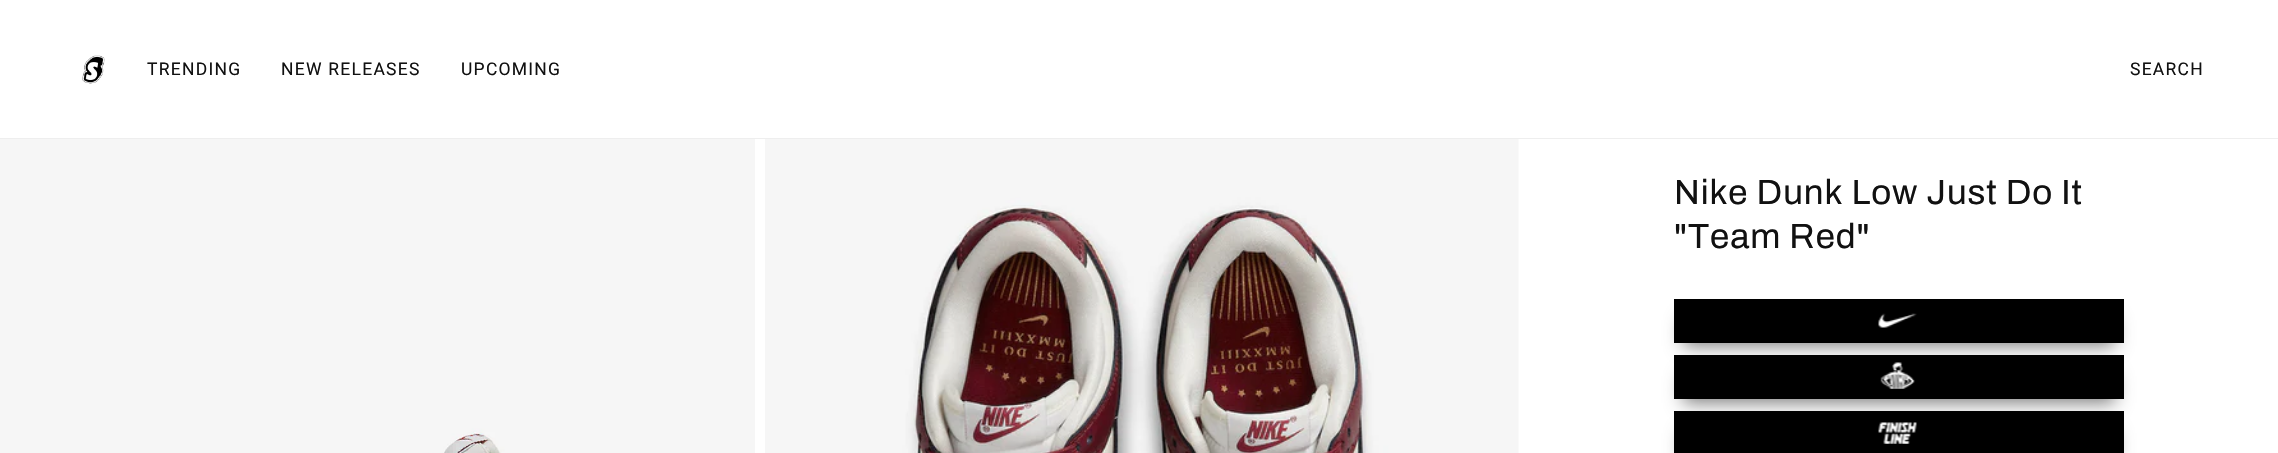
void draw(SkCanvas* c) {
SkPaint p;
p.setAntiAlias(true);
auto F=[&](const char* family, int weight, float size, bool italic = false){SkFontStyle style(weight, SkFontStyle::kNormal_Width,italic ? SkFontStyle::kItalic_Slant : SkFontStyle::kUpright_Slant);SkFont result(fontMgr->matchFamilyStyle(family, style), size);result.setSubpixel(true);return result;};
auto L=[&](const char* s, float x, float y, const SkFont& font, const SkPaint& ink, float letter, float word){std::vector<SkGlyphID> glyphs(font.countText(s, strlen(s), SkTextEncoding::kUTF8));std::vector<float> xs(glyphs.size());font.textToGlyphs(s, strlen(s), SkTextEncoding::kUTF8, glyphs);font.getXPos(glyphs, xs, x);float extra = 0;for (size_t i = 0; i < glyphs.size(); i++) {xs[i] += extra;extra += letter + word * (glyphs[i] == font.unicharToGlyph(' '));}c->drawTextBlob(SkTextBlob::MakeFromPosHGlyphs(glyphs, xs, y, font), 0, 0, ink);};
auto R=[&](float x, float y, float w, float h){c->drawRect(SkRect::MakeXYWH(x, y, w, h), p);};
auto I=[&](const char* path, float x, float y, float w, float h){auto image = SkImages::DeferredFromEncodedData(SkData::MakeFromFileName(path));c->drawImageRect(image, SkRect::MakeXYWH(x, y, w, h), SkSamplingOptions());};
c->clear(0xffffffff);
p.setColor(0xffeeeeee);
R(0,138,2278,1);
I("1.png",82,55,23,29);
auto f1 = F("Roboto",400,17.5);
p.setColor(0xff111111);
L("TRENDING",147,75,f1,p,1.25,0);
L("NEW RELEASES",281,75,f1,p,1.25,0);
L("UPCOMING",461,75,f1,p,1.25,0);
L("SEARCH",2130,75,f1,p,1.25,0);
I("2.png",0,139,755,314);
I("3.png",765,139,754,314);
auto f2 = F("Archivo",400,35);
L("Nike Dunk Low Just Do It",1674,204,f2,p,.9,0);
L("\"Team Red\"",1674,248,f2,p,.9,0);
p.setColor(0xff7d7d7d);
p.setMaskFilter(SkMaskFilter::MakeBlur(kNormal_SkBlurStyle, 9));
c->drawRect(SkRect::MakeXYWH(1683,320,432,26),p);
p.setMaskFilter(nullptr);
p.setColor(0xff000000);
R(1674,299,450,44);
I("4.png",1878,313,39,15);
p.setColor(0xff7d7d7d);
p.setMaskFilter(SkMaskFilter::MakeBlur(kNormal_SkBlurStyle, 9));
c->drawRect(SkRect::MakeXYWH(1683,376,432,27),p);
p.setMaskFilter(nullptr);
p.setColor(0xff000000);
R(1674,355,450,44);
I("5.png",1880,362,35,27);
p.setColor(0xff7d7d7d);
p.setMaskFilter(SkMaskFilter::MakeBlur(kNormal_SkBlurStyle, 9));
c->drawRect(SkRect::MakeXYWH(1683,433,432,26),p);
p.setMaskFilter(nullptr);
p.setColor(0xff000000);
R(1674,411,450,42);
I("6.png",1878,422,39,22);
}
